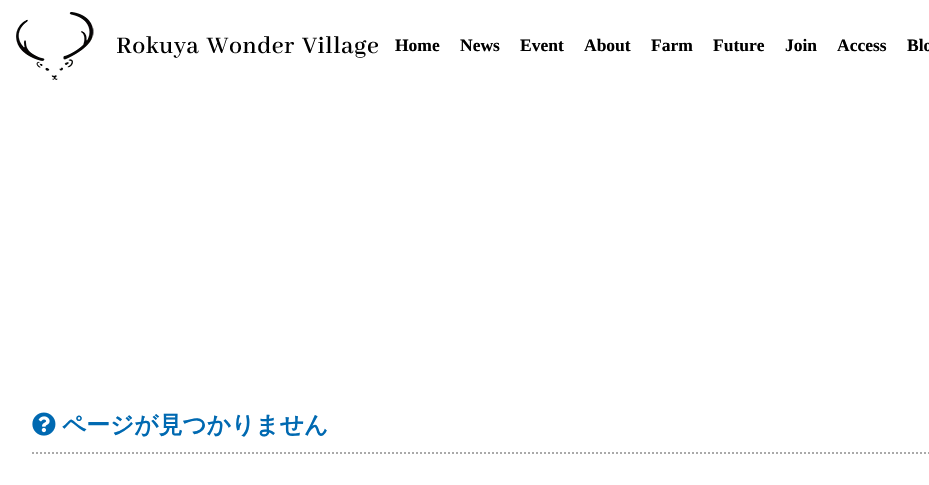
void draw(SkCanvas* c) {
SkPaint p;
p.setAntiAlias(true);
auto F=[&](const char* family, int weight, float size, bool italic = false){SkFontStyle style(weight, SkFontStyle::kNormal_Width,italic ? SkFontStyle::kItalic_Slant : SkFontStyle::kUpright_Slant);SkFont result(fontMgr->matchFamilyStyle(family, style), size);result.setSubpixel(true);return result;};
auto T=[&](const char* s, float x, float y, const SkFont& font){c->drawString(s, x, y, font, p);};
auto I=[&](const char* path, float x, float y, float w, float h){auto image = SkImages::DeferredFromEncodedData(SkData::MakeFromFileName(path));c->drawImageRect(image, SkRect::MakeXYWH(x, y, w, h), SkSamplingOptions());};
auto P=[&](const char* data, bool evenOdd = false){SkPath result = *SkParsePath::FromSVGString(data);if (evenOdd) result.setFillType(SkPathFillType::kEvenOdd);return result;};
c->clear(0xffffffff);
I("1.png",16,12,362,68);
auto f1 = F("Liberation Serif",700,17.5);
p.setColor(0xff000000);
T("Home",395,51,f1);
T("News",460,51,f1);
T("Event",520,51,f1);
T("About",584,51,f1);
T("Farm",651,51,f1);
T("Future",713,51,f1);
T("Join",785,51,f1);
T("Access",837,51,f1);
T("Blo",907,51,f1);
p.setStroke(true);
p.setStrokeWidth(2);
p.setColor(0xffaaaaaa);
p.setPathEffect(SkDashPathEffect::Make({{2,2}}, 0));
c->drawPath(P("M32 453h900"),p);
p.setPathEffect(nullptr);
I("2.png",32,412,24,24);
auto f2 = F("WenQuanYi Zen Hei",700,23.75);
p.setStroke(false);
p.setColor(0xff0069b1);
T("ページが見つかりません",62,433,f2);
}
